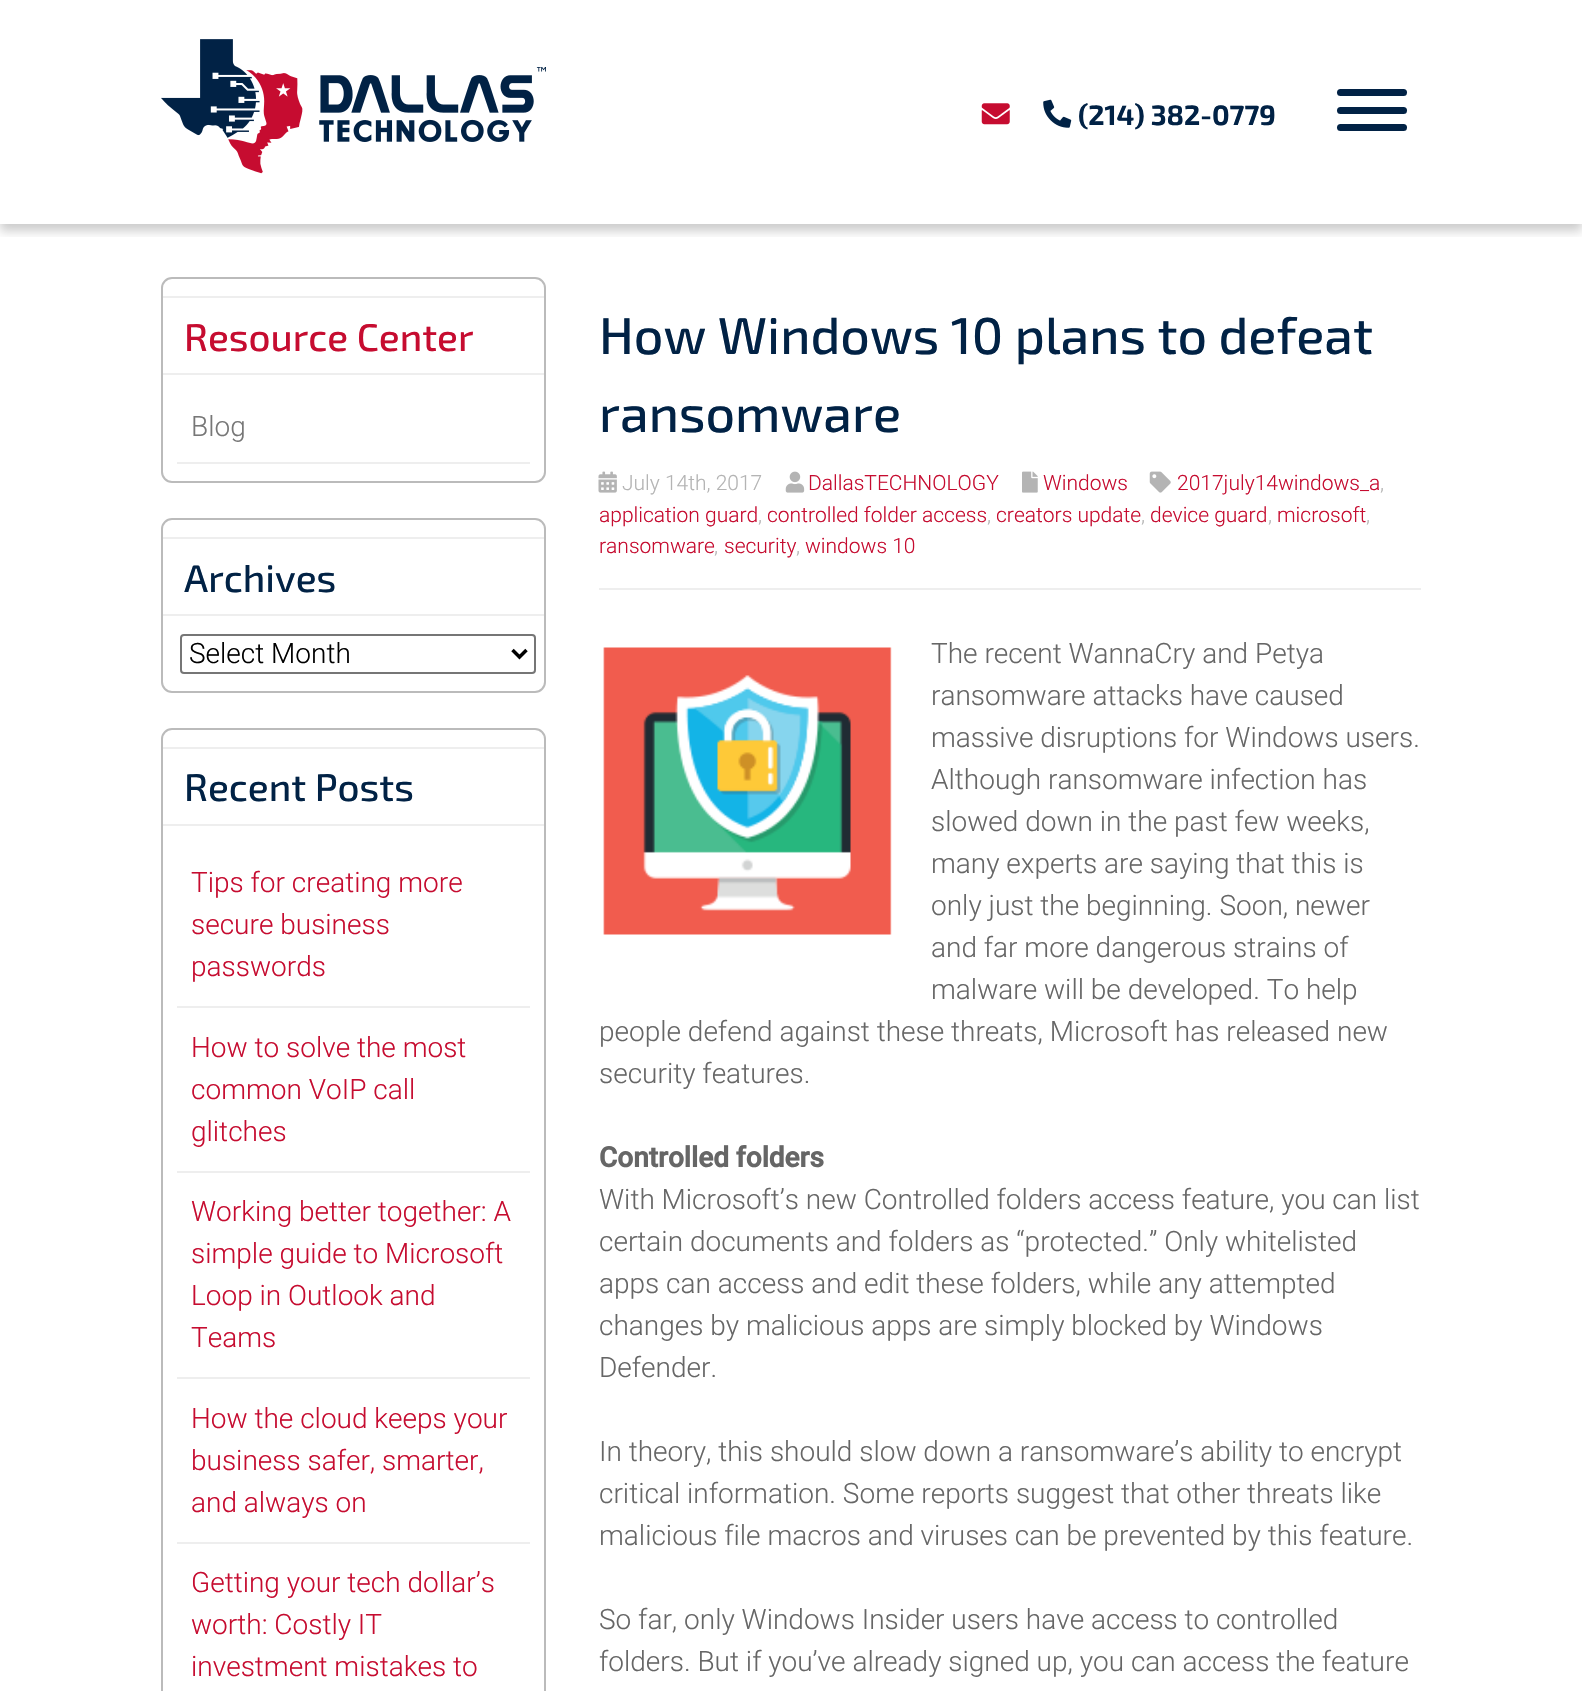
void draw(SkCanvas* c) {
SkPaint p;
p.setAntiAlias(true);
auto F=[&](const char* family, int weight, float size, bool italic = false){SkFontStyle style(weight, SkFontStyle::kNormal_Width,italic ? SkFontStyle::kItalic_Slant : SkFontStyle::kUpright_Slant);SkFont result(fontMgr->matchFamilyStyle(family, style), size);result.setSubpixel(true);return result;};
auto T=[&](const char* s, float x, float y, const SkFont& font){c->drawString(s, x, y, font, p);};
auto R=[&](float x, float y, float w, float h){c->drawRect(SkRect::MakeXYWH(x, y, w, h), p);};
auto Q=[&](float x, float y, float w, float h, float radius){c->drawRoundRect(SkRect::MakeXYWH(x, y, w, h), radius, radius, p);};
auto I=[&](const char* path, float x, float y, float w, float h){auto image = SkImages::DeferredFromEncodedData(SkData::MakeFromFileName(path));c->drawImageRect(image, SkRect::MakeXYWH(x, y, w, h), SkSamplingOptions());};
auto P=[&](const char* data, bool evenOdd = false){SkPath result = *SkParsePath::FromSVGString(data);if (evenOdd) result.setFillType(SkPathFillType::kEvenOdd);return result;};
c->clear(0xffffffff);
c->save();
c->clipRect(SkRect::MakeXYWH(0,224,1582,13));
p.setColor(0x33000000);
p.setMaskFilter(SkMaskFilter::MakeBlur(kNormal_SkBlurStyle, 5));
c->drawRect(SkRect::MakeXYWH(0,7,1582,224),p);
p.setMaskFilter(nullptr);
c->restore();
I("1.png",161,39,385,135);
I("2.png",981,103,29,22);
I("3.png",1043,99,29,29);
auto f1 = F("Exo 2",700,28);
p.setColor(0xff012245);
T("(214) 382-0779",1078,125,f1);
Q(1337,124,70,7,3.5);
Q(1337,89,70,7,3.5);
Q(1337,107,70,7,3.5);
p.setStroke(true);
p.setStrokeWidth(2);
p.setColor(0xffbbbbbb);
c->drawRoundRect(SkRect::MakeXYWH(162,278,383,204),10,10,p);
p.setStroke(false);
p.setColor(0xffeeeeee);
R(163,296,381,2);
R(163,373,381,2);
auto f2 = F("Exo 2",500,38.5);
p.setColor(0xffc60c30);
T("Resource Center",184,351,f2);
p.setColor(0xffeeeeee);
R(177,462,353,2);
auto f3 = F("Roboto",300,28);
p.setColor(0xff777777);
T("Blog",191,436,f3);
p.setStroke(true);
p.setColor(0xffbbbbbb);
c->drawRoundRect(SkRect::MakeXYWH(162,519,383,173),10,10,p);
p.setStroke(false);
p.setColor(0xffeeeeee);
R(163,537,381,2);
R(163,614,381,2);
p.setColor(0xff012245);
T("Archives",184,592,f2);
p.setStroke(true);
p.setColor(0xff767676);
c->drawRoundRect(SkRect::MakeXYWH(181,635,354,38),3,3,p);
p.setStrokeWidth(3.5);
p.setColor(0xff000000);
c->drawPath(P("M512.5 650l7 7l7-7"),p);
p.setStroke(false);
T("Select Month",189,663,f3);
p.setStroke(true);
p.setStrokeWidth(2);
p.setColor(0xffbbbbbb);
c->drawRoundRect(SkRect::MakeXYWH(162,729,383,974),10,10,p);
p.setStroke(false);
p.setColor(0xffeeeeee);
R(163,747,381,2);
R(163,824,381,2);
p.setColor(0xff012245);
T("Recent Posts",184,801,f2);
p.setColor(0xffeeeeee);
R(177,1006,353,2);
p.setColor(0xffc60c30);
T("Tips for creating more",191,892,f3);
T("secure business",191,934,f3);
T("passwords",191,976,f3);
p.setColor(0xffeeeeee);
R(177,1171,353,2);
p.setColor(0xffc60c30);
T("How to solve the most",191,1057,f3);
T("common VoIP call",191,1099,f3);
T("glitches",191,1141,f3);
p.setColor(0xffeeeeee);
R(177,1377,353,2);
p.setColor(0xffc60c30);
T("Working better together: A",191,1221,f3);
T("simple guide to Microsoft",191,1263,f3);
T("Loop in Outlook and",191,1305,f3);
T("Teams",191,1347,f3);
p.setColor(0xffeeeeee);
R(177,1542,353,2);
p.setColor(0xffc60c30);
T("How the cloud keeps your",191,1428,f3);
T("business safer, smarter,",191,1470,f3);
T("and always on",191,1512,f3);
T("Getting your tech dollar’s",191,1592,f3);
T("worth: Costly IT",191,1634,f3);
T("investment mistakes to",191,1676,f3);
auto f4 = F("Exo 2",500,51.75);
p.setColor(0xff012245);
T("How Windows 10 plans to defeat",599,354,f4);
T("ransomware",599,432,f4);
p.setColor(0xffeeeeee);
R(599,588,822,2);
I("4.png",1149,471,22,22);
auto f5 = F("Roboto",300,21);
p.setColor(0xffc60c30);
T("2017july14windows_a",1177,490,f5);
p.setColor(0xffb4b4b4);
T(",",1380,490,f5);
p.setColor(0xffc60c30);
T("application guard",599,522,f5);
p.setColor(0xffb4b4b4);
T(",",758,522,f5);
p.setColor(0xffc60c30);
T("controlled folder access",767,522,f5);
p.setColor(0xffb4b4b4);
T(",",987,522,f5);
p.setColor(0xffc60c30);
T("creators update",996,522,f5);
p.setColor(0xffb4b4b4);
T(",",1141,522,f5);
p.setColor(0xffc60c30);
T("device guard",1150,522,f5);
p.setColor(0xffb4b4b4);
T(",",1268,522,f5);
p.setColor(0xffc60c30);
T("microsoft",1277,522,f5);
p.setColor(0xffb4b4b4);
T(",",1366,522,f5);
p.setColor(0xffc60c30);
T("ransomware",599,553,f5);
p.setColor(0xffb4b4b4);
T(",",714,553,f5);
p.setColor(0xffc60c30);
T("security",724,553,f5);
p.setColor(0xffb4b4b4);
T(",",796,553,f5);
p.setColor(0xffc60c30);
T("windows 10",805,553,f5);
I("5.png",598,471,19,22);
p.setColor(0xffb4b4b4);
T("July 14th, 2017",622,490,f5);
I("6.png",785,471,20,22);
p.setColor(0xffc60c30);
T("DallasTECHNOLOGY",808,490,f5);
I("7.png",1022,471,16,22);
T("Windows",1043,490,f5);
I("8.png",603,647,289,288);
p.setColor(0xff666666);
T("The recent WannaCry and Petya",931,663,f3);
T("ransomware attacks have caused",931,705,f3);
T("massive disruptions for Windows users.",931,747,f3);
T("Although ransomware infection has",931,789,f3);
T("slowed down in the past few weeks,",931,831,f3);
T("many experts are saying that this is",931,873,f3);
T("only just the beginning. Soon, newer",931,915,f3);
T("and far more dangerous strains of",931,957,f3);
T("malware will be developed. To help",931,999,f3);
T("people defend against these threats, Microsoft has released new",599,1041,f3);
T("security features.",599,1083,f3);
auto f6 = F("Roboto",700,28);
T("Controlled folders",599,1167,f6);
T("With Microsoft’s new Controlled folders access feature, you can list",599,1209,f3);
T("certain documents and folders as “protected.” Only whitelisted",599,1251,f3);
T("apps can access and edit these folders, while any attempted",599,1293,f3);
T("changes by malicious apps are simply blocked by Windows",599,1335,f3);
T("Defender.",599,1377,f3);
T("In theory, this should slow down a ransomware’s ability to encrypt",599,1461,f3);
T("critical information. Some reports suggest that other threats like",599,1503,f3);
T("malicious file macros and viruses can be prevented by this feature.",599,1545,f3);
T("So far, only Windows Insider users have access to controlled",599,1629,f3);
T("folders. But if you’ve already signed up, you can access the feature",599,1671,f3);
}
